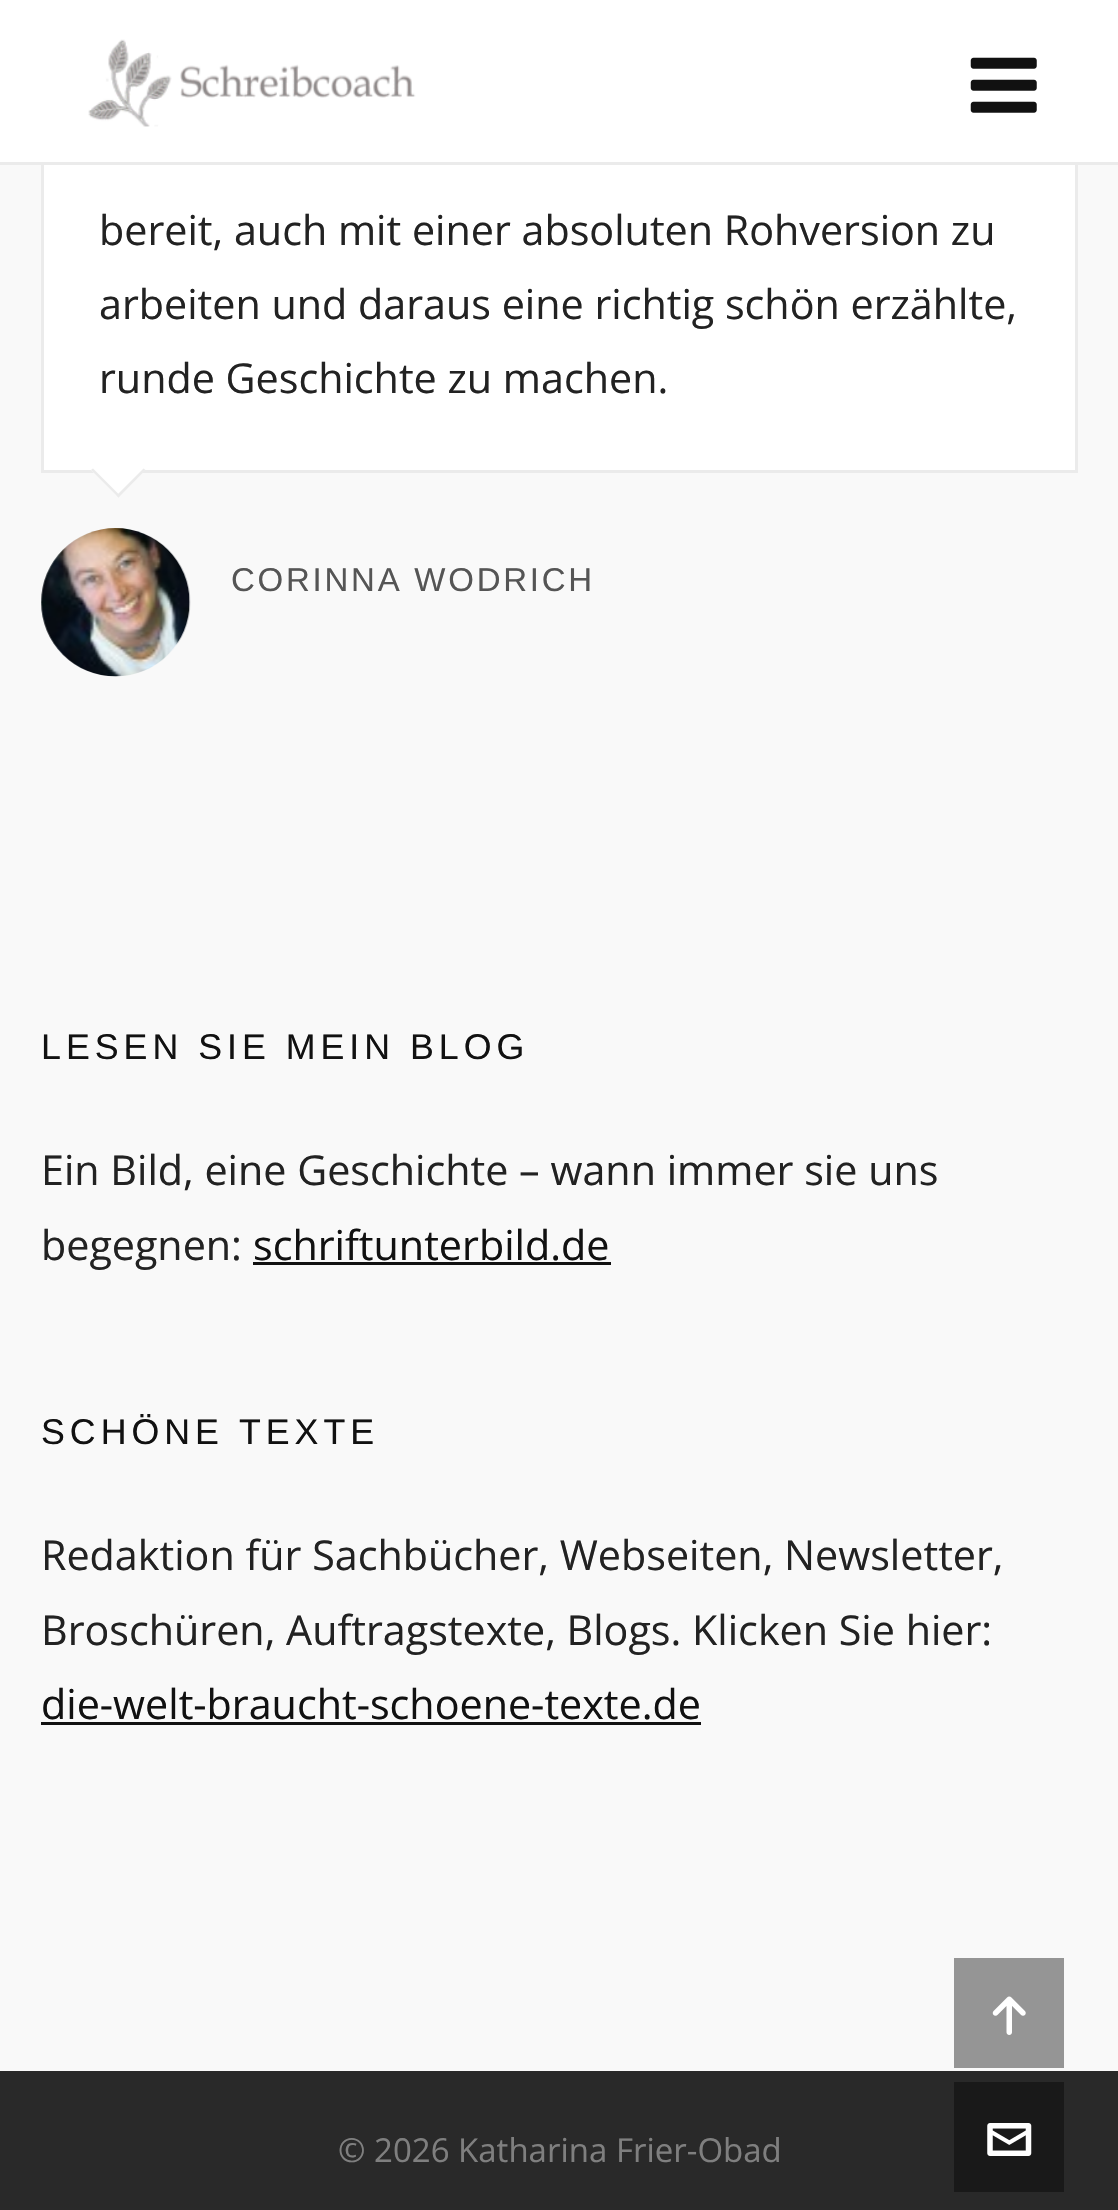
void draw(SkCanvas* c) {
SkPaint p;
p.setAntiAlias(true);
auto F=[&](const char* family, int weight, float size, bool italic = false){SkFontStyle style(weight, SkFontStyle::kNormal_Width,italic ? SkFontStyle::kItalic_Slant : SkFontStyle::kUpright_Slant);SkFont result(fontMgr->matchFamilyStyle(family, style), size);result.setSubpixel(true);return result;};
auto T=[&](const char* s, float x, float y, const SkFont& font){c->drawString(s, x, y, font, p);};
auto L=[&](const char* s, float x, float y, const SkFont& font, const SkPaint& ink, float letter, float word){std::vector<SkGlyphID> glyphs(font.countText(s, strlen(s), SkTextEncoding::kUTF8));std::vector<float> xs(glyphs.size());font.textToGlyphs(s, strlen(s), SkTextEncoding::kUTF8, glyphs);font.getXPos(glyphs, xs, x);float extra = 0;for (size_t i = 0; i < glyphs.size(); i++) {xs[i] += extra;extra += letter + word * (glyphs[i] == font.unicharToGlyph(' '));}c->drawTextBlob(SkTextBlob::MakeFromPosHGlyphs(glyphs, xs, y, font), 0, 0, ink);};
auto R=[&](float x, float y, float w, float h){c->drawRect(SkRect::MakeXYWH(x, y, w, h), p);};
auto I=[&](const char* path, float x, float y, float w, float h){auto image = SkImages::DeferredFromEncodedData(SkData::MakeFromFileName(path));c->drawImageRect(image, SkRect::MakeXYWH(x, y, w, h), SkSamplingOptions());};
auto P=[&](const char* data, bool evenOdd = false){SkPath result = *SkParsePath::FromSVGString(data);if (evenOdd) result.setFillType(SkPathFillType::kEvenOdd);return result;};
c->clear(0xfff9f9f9);
p.setColor(0xffffffff);
R(44,165,1031,305);
p.setStroke(true);
p.setStrokeWidth(3);
p.setColor(0xffebebeb);
c->drawRect(SkRect::MakeXYWH(42.5,-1.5,1034,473),p);
p.setStroke(false);
p.setColor(0xffffffff);
R(0,0,1118,162);
p.setColor(0xffebebeb);
R(0,162,1118,3);
I("1.png",88,39,328,88);
I("2.png",970,57,67,56);
auto f1 = F("Open Sans",400,41.25);
p.setColor(0xff222222);
T("bereit, auch mit einer absoluten Rohversion zu",99,245,f1);
T("arbeiten und daraus eine richtig schön erzählte,",99,319,f1);
T("runde Geschichte zu machen.",99,393,f1);
p.setColor(0xffffffff);
c->drawPath(P("M118 443l27 27l-27 27l-27-27z"),p);
p.setColor(0xffebebeb);
c->drawPath(P("M143.5 468.5l2 1.5l-27 27.5l-2-2z"),p);
c->drawPath(P("M93 468.5l27 27l-1.5 2l-27.5-27.5z"),p);
I("3.png",41,528,150,149);
auto f2 = F("Liberation Sans",400,33);
p.setColor(0xff555555);
L("CORINNA WODRICH",231,591,f2,p,2.75,0);
auto f3 = F("Liberation Sans",400,35.75);
p.setColor(0xff111111);
L("LESEN SIE MEIN BLOG",41,1059,f3,p,5,0);
p.setColor(0xff222222);
T("Ein Bild, eine Geschichte – wann immer sie uns",41,1185,f1);
T("begegnen:",41,1260,f1);
p.setColor(0xff111111);
T("schriftunterbild.de",253,1260,f1);
R(253,1262,358,3);
L("SCHÖNE TEXTE",41,1444,f3,p,5,0);
p.setColor(0xff222222);
T("Redaktion für Sachbücher, Webseiten, Newsletter,",41,1570,f1);
T("Broschüren, Auftragstexte, Blogs. Klicken Sie hier:",41,1645,f1);
p.setColor(0xff111111);
T("die-welt-braucht-schoene-texte.de",41,1719,f1);
R(41,1722,660,3);
p.setColor(0xff959595);
R(954,1958,110,110);
I("4.png",992,1996,34,39);
p.setColor(0xff292929);
R(0,2071,1118,139);
auto f4 = F("Open Sans",400,33);
p.setColor(0xff7f7f7f);
T("© 2026 Katharina Frier-Obad",338,2162,f4);
p.setColor(0xff191919);
R(954,2082,110,110);
I("5.png",987,2123,45,33);
}
